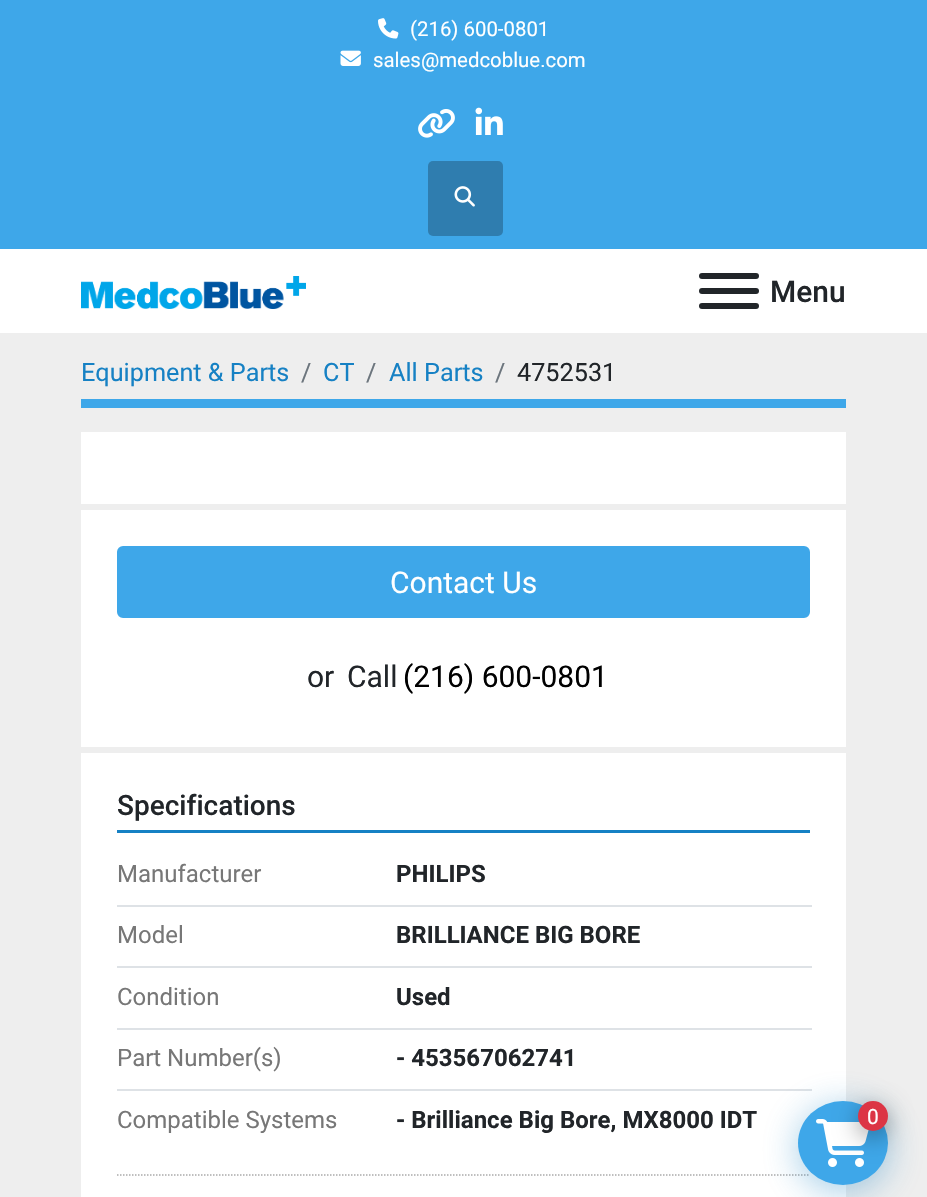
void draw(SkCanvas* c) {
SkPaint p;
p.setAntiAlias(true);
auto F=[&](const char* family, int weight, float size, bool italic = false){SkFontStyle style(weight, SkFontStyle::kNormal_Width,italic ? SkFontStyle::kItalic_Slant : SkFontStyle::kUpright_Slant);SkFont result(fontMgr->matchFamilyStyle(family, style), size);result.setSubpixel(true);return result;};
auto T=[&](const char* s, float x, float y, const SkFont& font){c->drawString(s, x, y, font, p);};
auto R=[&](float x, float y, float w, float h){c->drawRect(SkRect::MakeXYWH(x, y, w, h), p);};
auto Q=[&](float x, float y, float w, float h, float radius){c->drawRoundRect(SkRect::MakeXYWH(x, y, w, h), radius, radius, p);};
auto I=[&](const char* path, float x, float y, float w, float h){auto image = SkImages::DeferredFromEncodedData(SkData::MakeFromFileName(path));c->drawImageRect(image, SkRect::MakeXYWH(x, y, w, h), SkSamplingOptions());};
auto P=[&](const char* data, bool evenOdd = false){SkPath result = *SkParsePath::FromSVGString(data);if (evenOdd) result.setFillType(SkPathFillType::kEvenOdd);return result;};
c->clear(0xffeeeeee);
p.setColor(0xff3ea7e9);
R(0,0,927,249);
I("1.png",378,18,21,21);
auto f1 = F("Roboto",400,20.4);
p.setColor(0xffffffff);
T("(216) 600-0801",410,36,f1);
I("2.png",340,50,21,16);
T("sales@medcoblue.com",373,67,f1);
I("3.png",418,109,37,29);
I("4.png",475,107,28,28);
p.setColor(0xff2f7daf);
Q(428,161,75,75,5);
I("5.png",454,186,21,21);
p.setColor(0xffffffff);
R(0,249,927,84);
I("6.png",81,276,225,33);
p.setColor(0xff212529);
Q(699,288,60,6,3);
Q(699,273,60,6,3);
Q(699,303,60,6,3);
auto f2 = F("Roboto",500,30);
T("Menu",770,302,f2);
p.setColor(0xff3ea7e9);
R(81,399,765,9);
auto f3 = F("Roboto",400,25.25);
p.setColor(0xff1681c4);
T("Equipment & Parts",81,381,f3);
p.setColor(0xff6c757d);
T("/",301,381,f3);
p.setColor(0xff1681c4);
T("CT",323,381,f3);
p.setColor(0xff6c757d);
T("/",366,381,f3);
p.setColor(0xff1681c4);
T("All Parts",389,381,f3);
p.setColor(0xff6c757d);
T("/",495,381,f3);
p.setColor(0xff212529);
T("4752531",517,381,f3);
p.setColor(0xffffffff);
R(81,432,765,765);
p.setColor(0xffeeeeee);
R(81,504,765,6);
R(81,747,765,6);
p.setColor(0xff3ea7e9);
c->drawRoundRect(SkRect::MakeXYWH(118,547,691,70),5,5,p);
p.setStroke(true);
p.setStrokeWidth(2);
c->drawRoundRect(SkRect::MakeXYWH(118,547,691,70),5,5,p);
auto f4 = F("Roboto",400,30);
p.setStroke(false);
p.setColor(0xffffffff);
T("Contact Us",390,593,f4);
p.setColor(0xff212529);
T("or",307,687,f4);
T("Call",347,687,f4);
p.setColor(0xff000000);
T("(216) 600-0801",403,687,f4);
p.setColor(0xff1681c4);
R(117,830,693,3);
auto f5 = F("Roboto",500,28);
p.setColor(0xff212529);
T("Specifications",117,815,f5);
p.setColor(0xffdee2e6);
R(117,905,695,2);
auto f6 = F("Roboto",400,24);
p.setColor(0xff777777);
T("Manufacturer",117,882,f6);
auto f7 = F("Roboto",700,24);
p.setColor(0xff212529);
T("PHILIPS",396,882,f7);
p.setColor(0xffdee2e6);
R(117,966,695,2);
p.setColor(0xff777777);
T("Model",117,943,f6);
p.setColor(0xff212529);
T("BRILLIANCE BIG BORE",396,943,f7);
p.setColor(0xffdee2e6);
R(117,1028,695,2);
p.setColor(0xff777777);
T("Condition",117,1005,f6);
p.setColor(0xff212529);
T("Used",396,1005,f7);
p.setColor(0xffdee2e6);
R(117,1089,695,2);
p.setColor(0xff777777);
T("Part Number(s)",117,1066,f6);
p.setColor(0xff212529);
T("- 453567062741",396,1066,f7);
p.setColor(0xff777777);
T("Compatible Systems",117,1128,f6);
p.setColor(0xff212529);
T("- Brilliance Big Bore, MX8000 IDT",396,1128,f7);
p.setStroke(true);
p.setStrokeWidth(1.5);
p.setColor(0xffaaaaaa);
p.setPathEffect(SkDashPathEffect::Make({{1.5f,1.5f}}, 0));
c->drawPath(P("M117 1175h693"),p);
p.setPathEffect(nullptr);
p.setStroke(false);
p.setColor(0x661681c4);
p.setMaskFilter(SkMaskFilter::MakeBlur(kNormal_SkBlurStyle, 18));
c->drawRoundRect(SkRect::MakeXYWH(798,1107,90,84),42,42,p);
p.setMaskFilter(nullptr);
p.setColor(0xff3ea7e9);
c->drawOval(SkRect::MakeXYWH(798,1101,90,84),p);
I("7.png",816,1119,53,48);
p.setColor(0x66000000);
p.setMaskFilter(SkMaskFilter::MakeBlur(kNormal_SkBlurStyle, 12));
c->drawRoundRect(SkRect::MakeXYWH(858,1107,30,30),15,15,p);
p.setMaskFilter(nullptr);
p.setColor(0xffdc3545);
c->drawCircle(873,1116,15,p);
auto f8 = F("Roboto",400,21);
p.setColor(0xffffffff);
T("0",867,1124,f8);
}
